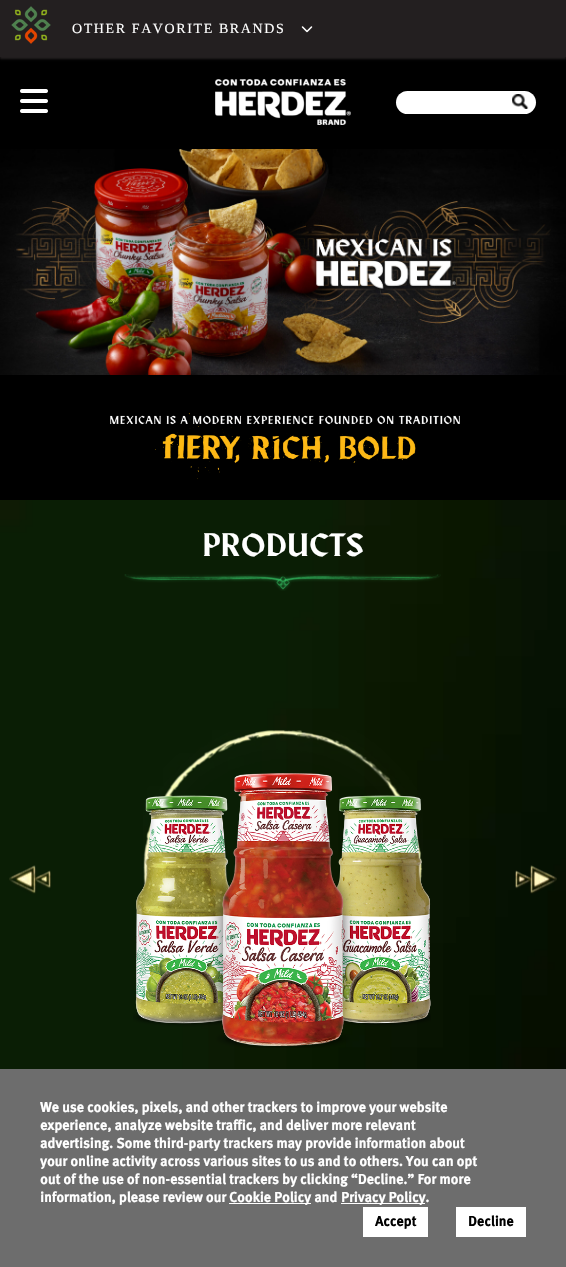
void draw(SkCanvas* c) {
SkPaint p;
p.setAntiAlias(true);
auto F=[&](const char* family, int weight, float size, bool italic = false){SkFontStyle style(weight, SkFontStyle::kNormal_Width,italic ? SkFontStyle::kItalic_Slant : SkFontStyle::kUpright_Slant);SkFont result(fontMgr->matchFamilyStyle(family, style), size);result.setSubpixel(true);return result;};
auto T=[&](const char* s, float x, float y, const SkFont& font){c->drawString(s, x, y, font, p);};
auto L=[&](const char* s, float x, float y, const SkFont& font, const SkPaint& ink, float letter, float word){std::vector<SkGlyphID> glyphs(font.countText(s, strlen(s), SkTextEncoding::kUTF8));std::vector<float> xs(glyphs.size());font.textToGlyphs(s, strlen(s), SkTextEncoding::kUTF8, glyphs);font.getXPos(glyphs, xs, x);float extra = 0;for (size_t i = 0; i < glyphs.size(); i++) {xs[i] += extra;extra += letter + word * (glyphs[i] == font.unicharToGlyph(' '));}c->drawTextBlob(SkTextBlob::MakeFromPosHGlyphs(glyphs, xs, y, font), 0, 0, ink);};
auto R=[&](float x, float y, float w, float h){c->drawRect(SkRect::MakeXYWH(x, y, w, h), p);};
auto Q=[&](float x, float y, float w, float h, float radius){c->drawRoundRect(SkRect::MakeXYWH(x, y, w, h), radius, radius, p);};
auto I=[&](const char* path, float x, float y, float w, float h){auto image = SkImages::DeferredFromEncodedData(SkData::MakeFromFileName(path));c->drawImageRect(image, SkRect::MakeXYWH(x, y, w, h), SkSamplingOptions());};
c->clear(0xff000000);
p.setColor(0xff231f20);
p.setMaskFilter(SkMaskFilter::MakeBlur(kNormal_SkBlurStyle, 1));
c->drawRect(SkRect::MakeXYWH(0,2,566,57),p);
p.setMaskFilter(nullptr);
R(0,0,566,57);
I("1.png",11,6,40,38);
auto f1 = F("Liberation Serif",400,14);
p.setColor(0xffffffff);
L("OTHER FAVORITE BRANDS",72,33,f1,p,1.6,0);
I("2.png",301,26,12,7);
I("3.png",20,89,28,24);
I("4.png",215,79,136,46);
Q(396,91,140,23,11.5);
I("5.png",512,94,17,15);
I("6.png",0,149,566,226);
I("7.png",110,413,350,66);
I("8.png",0,500,566,767);
I("9.png",124,574,317,17);
auto f2 = F("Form",400,32);
T("PRODUCTS",202,556,f2);
I("10.png",143,730,280,156);
I("11.png",133,773,298,275);
I("12.png",9,865,42,29);
I("13.png",515,865,42,29);
I("14.png",12,1076,542,27);
I("15.png",124,1171,317,17);
p.setColor(0xf26d6d6d);
R(0,1069,566,198);
R(0,1069,566,198);
auto f3 = F("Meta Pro",700,14);
p.setColor(0xffffffff);
T("We use cookies, pixels, and other trackers to improve your website",40,1112,f3);
T("experience, analyze website traffic, and deliver more relevant",40,1130,f3);
T("advertising. Some third-party trackers may provide information about",40,1148,f3);
T("your online activity across various sites to us and to others. You can opt",40,1166,f3);
T("out of the use of non-essential trackers by clicking “Decline.” For more",40,1184,f3);
T("information, please review our",40,1202,f3);
R(229,1203,82,1);
T("Cookie Policy and",229,1202,f3);
R(341,1203,84,1);
T("Privacy Policy.",341,1202,f3);
R(363,1207,65,30);
p.setColor(0xff000000);
T("Accept",375,1226,f3);
p.setColor(0xffffffff);
R(456,1207,70,30);
p.setColor(0xff000000);
T("Decline",468,1226,f3);
}
